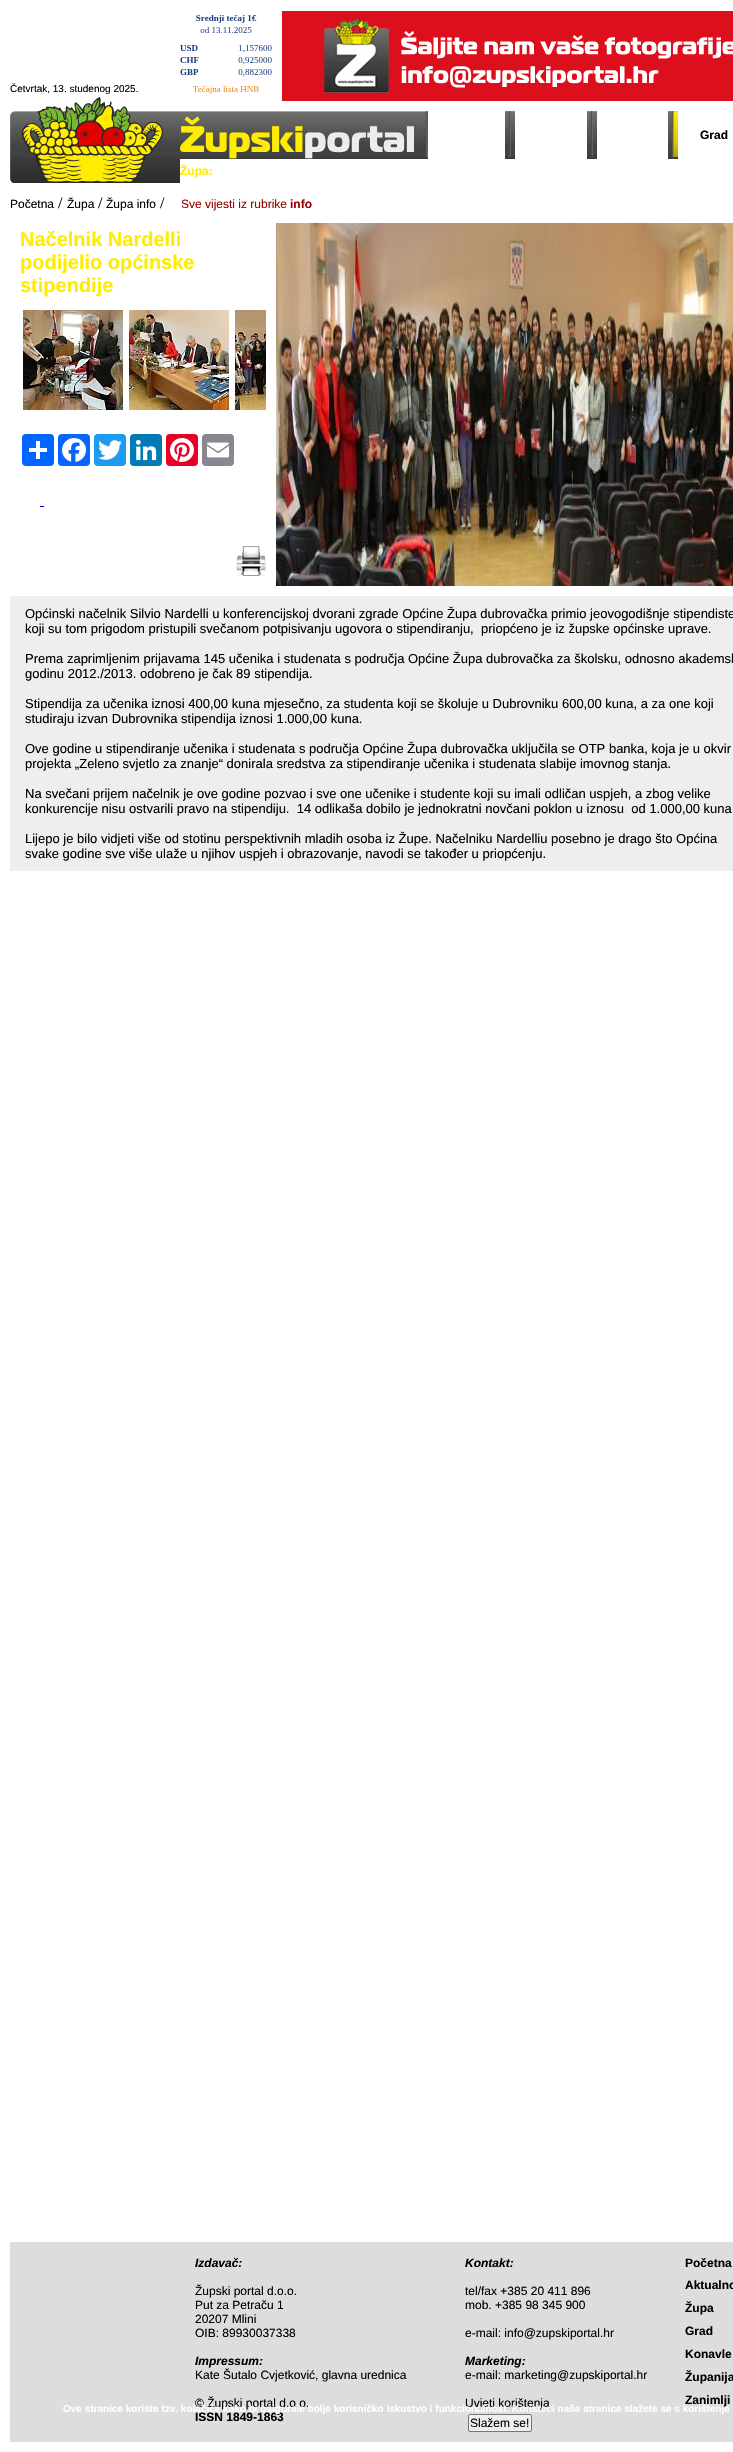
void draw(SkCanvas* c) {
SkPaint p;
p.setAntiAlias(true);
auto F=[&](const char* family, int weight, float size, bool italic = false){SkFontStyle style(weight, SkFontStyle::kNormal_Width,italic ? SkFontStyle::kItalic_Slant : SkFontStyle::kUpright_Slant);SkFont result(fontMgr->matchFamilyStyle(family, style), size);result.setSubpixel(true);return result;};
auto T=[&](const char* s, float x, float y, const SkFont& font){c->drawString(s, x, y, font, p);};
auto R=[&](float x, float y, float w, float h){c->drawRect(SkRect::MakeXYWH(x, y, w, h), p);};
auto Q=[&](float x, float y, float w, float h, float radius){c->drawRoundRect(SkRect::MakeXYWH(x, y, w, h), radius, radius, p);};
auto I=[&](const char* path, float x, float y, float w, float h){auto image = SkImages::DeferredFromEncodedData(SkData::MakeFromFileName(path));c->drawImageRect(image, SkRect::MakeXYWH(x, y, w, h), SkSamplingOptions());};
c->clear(0xffffffff);
auto f1 = F("Liberation Sans",400,10);
p.setColor(0xff000000);
T("Četvrtak, 13. studenog 2025.",10,92,f1);
I("1.png",10,97,170,86);
I("2.png",180,15,92,79);
I("3.png",282,11,451,90);
I("4.png",180,111,248,48);
I("5.png",505,111,10,48);
I("5.png",587,111,10,48);
I("6.png",668,111,10,48);
auto f2 = F("Liberation Sans",700,12);
T("Grad",700,139,f2);
p.setColor(0xfffeed00);
T("Župa:",180,175,f2);
auto f3 = F("Liberation Sans",400,12);
p.setColor(0xff000000);
T("Početna",10,208,f3);
auto f4 = F("Liberation Serif",400,16);
T("/",58,208,f4);
T("Župa",67,208,f3);
T("/",98,208,f4);
T("Župa info",106,208,f3);
T("/",160,208,f4);
p.setColor(0xff990000);
T("Sve vijesti iz rubrike",181,208,f3);
T("info",290,208,f2);
auto f5 = F("Liberation Sans",700,20);
p.setColor(0xfffeed00);
T("Načelnik Nardelli",20,246,f5);
T("podijelio općinske",20,269,f5);
T("stipendije",20,292,f5);
I("7.png",23,310,100,100);
I("8.png",129,310,100,100);
I("9.png",235,310,31,100);
p.setColor(0xff0166ff);
Q(22,434,32,32,4);
p.setColor(0xffffffff);
R(36,441,4,18);
R(29,448,18,4);
p.setColor(0xff0866ff);
Q(58,434,32,32,4);
I("10.png",62,438,24,24);
p.setColor(0xff1d9bf0);
Q(94,434,32,32,4);
I("11.png",98,440,24,20);
p.setColor(0xff007bb5);
Q(130,434,32,32,4);
I("12.png",135,439,22,22);
p.setColor(0xffe60023);
Q(166,434,32,32,4);
I("13.png",170,438,24,24);
p.setColor(0xff888990);
Q(202,434,32,32,4);
I("14.png",207,442,22,16);
p.setColor(0xff0000ee);
R(40,506,4,1);
I("15.png",236,546,30,30);
I("16.png",276,223,457,363);
p.setColor(0xffeeeeee);
R(10,596,723,275);
auto f6 = F("Liberation Sans",400,13);
p.setColor(0xff000000);
T("Općinski načelnik Silvio Nardelli u konferencijskoj dvorani zgrade Općine Župa dubrovačka primio jeovogodišnje stipendiste",25,618,f6);
T("koji su tom prigodom pristupili svečanom potpisivanju ugovora o stipendiranju,  priopćeno je iz župske općinske uprave.",25,633,f6);
T("Prema zaprimljenim prijavama 145 učenika i studenata s područja Općine Župa dubrovačka za školsku, odnosno akademsk",25,663,f6);
T("godinu 2012./2013. odobreno je čak 89 stipendija.",25,678,f6);
T("Stipendija za učenika iznosi 400,00 kuna mjesečno, za studenta koji se školuje u Dubrovniku 600,00 kuna, a za one koji",25,708,f6);
T("studiraju izvan Dubrovnika stipendija iznosi 1.000,00 kuna.",25,723,f6);
T("Ove godine u stipendiranje učenika i studenata s područja Općine Župa dubrovačka uključila se OTP banka, koja je u okvir",25,753,f6);
T("projekta „Zeleno svjetlo za znanje“ donirala sredstva za stipendiranje učenika i studenata slabije imovnog stanja.",25,768,f6);
T("Na svečani prijem načelnik je ove godine pozvao i sve one učenike i studente koji su imali odličan uspjeh, a zbog velike",25,798,f6);
T("konkurencije nisu ostvarili pravo na stipendiju.  14 odlikaša dobilo je jednokratni novčani poklon u iznosu  od 1.000,00 kuna",25,813,f6);
T("Lijepo je bilo vidjeti više od stotinu perspektivnih mladih osoba iz Župe. Načelniku Nardelliu posebno je drago što Općina",25,843,f6);
T("svake godine sve više ulaže u njihov uspjeh i obrazovanje, navodi se također u priopćenju.",25,858,f6);
p.setColor(0xffdddddd);
R(10,2242,723,200);
auto f7 = F("Liberation Sans",700,12,true);
p.setColor(0xff000000);
T("Izdavač:",195,2267,f7);
T("Župski portal d.o.o.",195,2295,f3);
T("Put za Petraču 1",195,2309,f3);
T("20207 Mlini",195,2323,f3);
T("OIB: 89930037338",195,2337,f3);
T("Impressum:",195,2365,f7);
T("Kate Šutalo Cvjetković, glavna urednica",195,2379,f3);
T("© Župski portal d.o.o.",195,2407,f3);
T("ISSN 1849-1863",195,2421,f2);
T("Kontakt:",465,2267,f7);
T("tel/fax +385 20 411 896",465,2295,f3);
T("mob. +385 98 345 900",465,2309,f3);
T("e-mail: info@zupskiportal.hr",465,2337,f3);
T("Marketing:",465,2365,f7);
T("e-mail: marketing@zupskiportal.hr",465,2379,f3);
T("Uvjeti korištenja",465,2407,f3);
T("Početna",685,2267,f2);
T("Aktualno",685,2289,f2);
T("Župa",685,2312,f2);
T("Grad",685,2335,f2);
T("Konavle",685,2358,f2);
T("Županija",685,2381,f2);
T("Zanimlji",685,2404,f2);
auto f8 = F("Liberation Sans",700,10);
p.setColor(0xffffffff);
T("Ove stranice koriste tzv. kolačiće kako bi osigurale bolje korisničko iskustvo i funkcionalnost. Koristeći naše stranice slažete se s korištenje",63,2412,f8);
p.setColor(0xffefefef);
c->drawRoundRect(SkRect::MakeXYWH(468.5,2414.5,63,17),1.5,1.5,p);
p.setStroke(true);
p.setStrokeWidth(1);
p.setColor(0xff767676);
c->drawRoundRect(SkRect::MakeXYWH(468.5,2414.5,63,17),1.5,1.5,p);
p.setStroke(false);
p.setColor(0xff000000);
T("Slažem se!",470,2427,f3);
}
